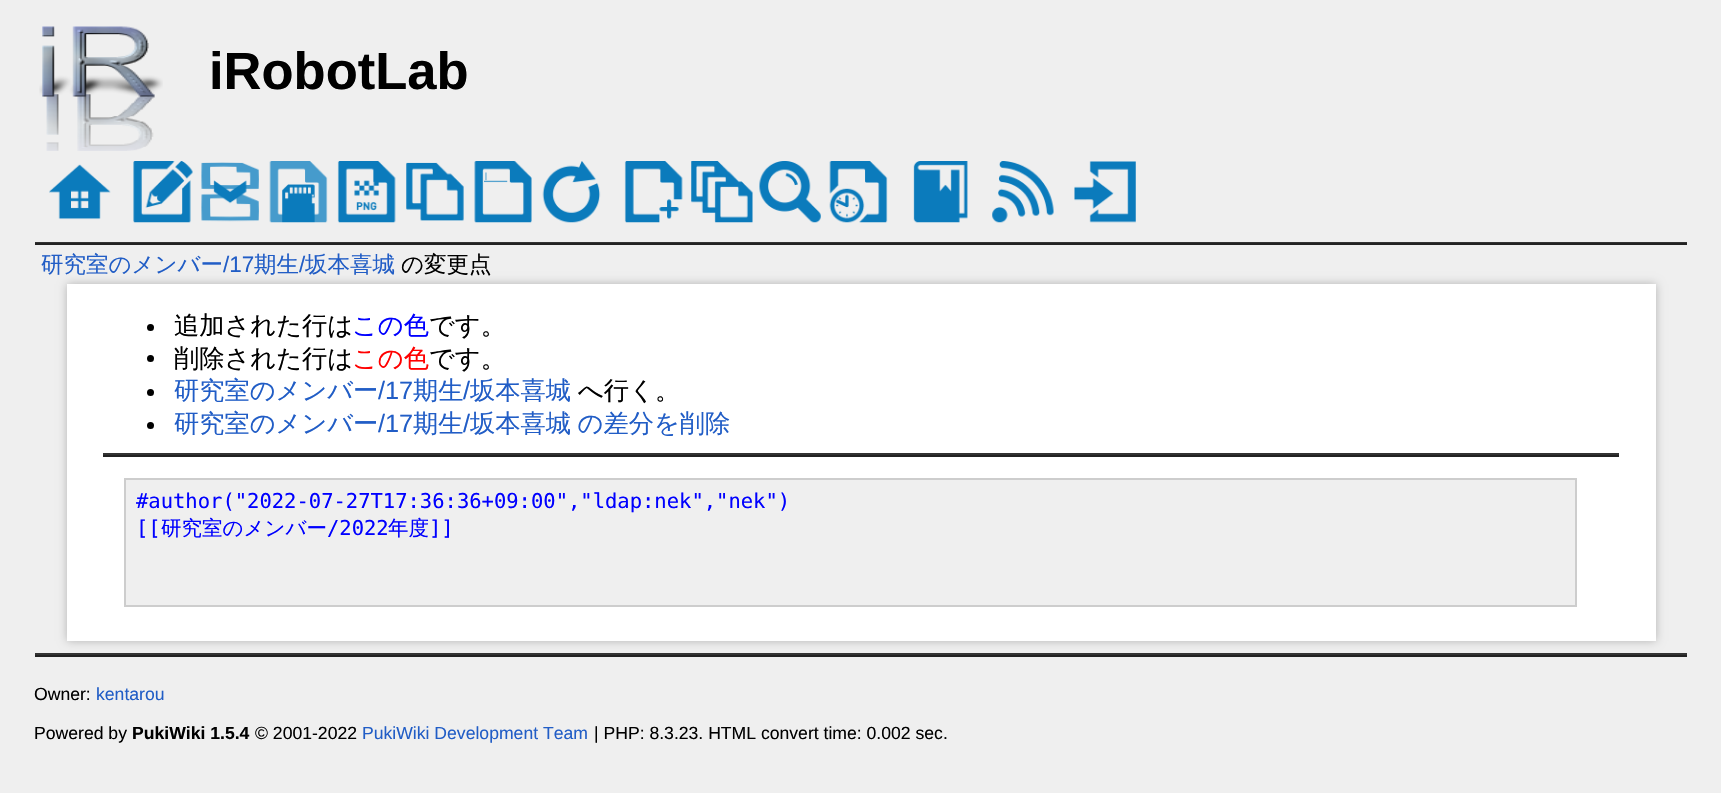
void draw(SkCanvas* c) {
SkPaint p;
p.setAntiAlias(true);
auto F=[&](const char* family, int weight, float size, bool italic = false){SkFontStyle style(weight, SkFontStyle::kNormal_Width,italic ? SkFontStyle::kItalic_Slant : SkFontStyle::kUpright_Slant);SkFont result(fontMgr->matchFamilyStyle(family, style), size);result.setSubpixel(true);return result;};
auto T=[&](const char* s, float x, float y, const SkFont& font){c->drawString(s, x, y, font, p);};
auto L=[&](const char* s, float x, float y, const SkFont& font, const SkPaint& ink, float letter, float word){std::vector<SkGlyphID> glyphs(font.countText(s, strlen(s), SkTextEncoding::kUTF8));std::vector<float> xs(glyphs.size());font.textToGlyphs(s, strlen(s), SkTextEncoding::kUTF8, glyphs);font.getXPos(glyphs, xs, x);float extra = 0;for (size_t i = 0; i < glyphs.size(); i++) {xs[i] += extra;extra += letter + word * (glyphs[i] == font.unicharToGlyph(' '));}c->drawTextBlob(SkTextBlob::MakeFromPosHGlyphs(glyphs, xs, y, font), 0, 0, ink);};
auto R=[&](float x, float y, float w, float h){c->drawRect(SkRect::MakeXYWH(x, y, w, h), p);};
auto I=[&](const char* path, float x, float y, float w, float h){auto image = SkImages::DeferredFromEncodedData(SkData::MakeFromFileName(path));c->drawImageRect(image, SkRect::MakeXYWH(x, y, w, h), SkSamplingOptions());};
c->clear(0xffefefef);
I("1.png",39,26,124,125);
auto f1 = F("Liberation Sans",700,52.5);
p.setColor(0xff000000);
T("iRobotLab",209,89,f1);
I("2.png",49,164,62,56);
I("3.png",133,161,60,62);
I("4.png",201,162,58,60);
I("5.png",269,161,59,62);
I("6.png",337,161,59,62);
I("7.png",406,162,58,59);
I("8.png",474,161,58,62);
I("9.png",542,161,59,62);
I("10.png",624,161,59,62);
I("11.png",691,161,62,62);
I("12.png",759,161,62,62);
I("13.png",829,161,59,62);
I("14.png",913,161,55,62);
I("15.png",992,161,62,62);
I("16.png",1074,161,62,62);
p.setColor(0xff333333);
R(35,242,1652,1);
p.setColor(0xff222222);
R(35,243,1652,2);
auto f2 = F("WenQuanYi Zen Hei",500,22.5);
p.setColor(0xff215dc6);
T("研究室のメンバー",41,272,f2);
auto f3 = F("Liberation Sans",400,22.5);
T("/17",223,272,f3);
T("期生",254,272,f2);
T("/",299,272,f3);
T("坂本喜城",305,272,f2);
p.setColor(0xff000000);
T("の変更点",401,272,f2);
p.setColor(0x40000000);
p.setMaskFilter(SkMaskFilter::MakeBlur(kNormal_SkBlurStyle, 4.5));
c->drawRect(SkRect::MakeXYWH(67,284,1589,357),p);
p.setMaskFilter(nullptr);
p.setColor(0xffffffff);
R(67,284,1589,357);
p.setColor(0xff000000);
c->drawCircle(150.5,327.5,3.5,p);
auto f4 = F("WenQuanYi Zen Hei",500,25.25);
T("追加された行は",174,334,f4);
p.setColor(0xff0000ff);
T("この色",352,334,f4);
p.setColor(0xff000000);
T("です。",429,334,f4);
c->drawCircle(150.5,358.5,3.5,p);
T("削除された行は",174,367,f4);
p.setColor(0xffff0000);
T("この色",352,367,f4);
p.setColor(0xff000000);
T("です。",429,367,f4);
c->drawCircle(150.5,392.5,3.5,p);
p.setColor(0xff215dc6);
T("研究室のメンバー",174,399,f4);
auto f5 = F("Liberation Sans",400,25.25);
T("/17",378,399,f5);
T("期生",413,399,f4);
T("/",463,399,f5);
T("坂本喜城",470,399,f4);
p.setColor(0xff000000);
T("へ行く。",578,399,f4);
c->drawCircle(150.5,425.5,3.5,p);
p.setColor(0xff215dc6);
T("研究室のメンバー",174,432,f4);
T("/17",378,432,f5);
T("期生",413,432,f4);
T("/",463,432,f5);
L("坂本喜城 の差分を削除",470,432,f4,p,0,-1);
p.setColor(0xff333333);
R(103,453,1516,2);
p.setColor(0xff222222);
R(103,455,1516,2);
p.setColor(0xffefefef);
c->drawRect(SkRect::MakeXYWH(125,479,1451,127),p);
p.setStroke(true);
p.setStrokeWidth(2);
p.setColor(0xffcdcdcd);
c->drawRect(SkRect::MakeXYWH(125,479,1451,127),p);
auto f6 = F("DejaVu Sans Mono",400,20.5);
p.setStroke(false);
p.setColor(0xff0000ff);
T("#author(\"2022-07-27T17:36:36+09:00\",\"ldap:nek\",\"nek\")",136,508,f6);
T("[[",136,535,f6);
auto f7 = F("WenQuanYi Zen Hei",500,20.5);
T("研究室のメンバー",161,535,f7);
T("/2022",327,535,f6);
T("年度",388,535,f7);
T("]]",429,535,f6);
p.setColor(0xff333333);
R(35,653,1652,2);
p.setColor(0xff222222);
R(35,655,1652,2);
auto f8 = F("Liberation Sans",400,17.6);
p.setColor(0xff000000);
T("Owner:",34,700,f8);
p.setColor(0xff215dc6);
T("kentarou",96,700,f8);
p.setColor(0xff000000);
T("Powered by",34,739,f8);
auto f9 = F("Liberation Sans",700,17.6);
T("PukiWiki 1.5.4",132,739,f9);
T("© 2001-2022",255,739,f8);
p.setColor(0xff215dc6);
T("PukiWiki Development Team",362,739,f8);
p.setColor(0xff000000);
T("| PHP: 8.3.23. HTML convert time: 0.002 sec.",594,739,f8);
}
